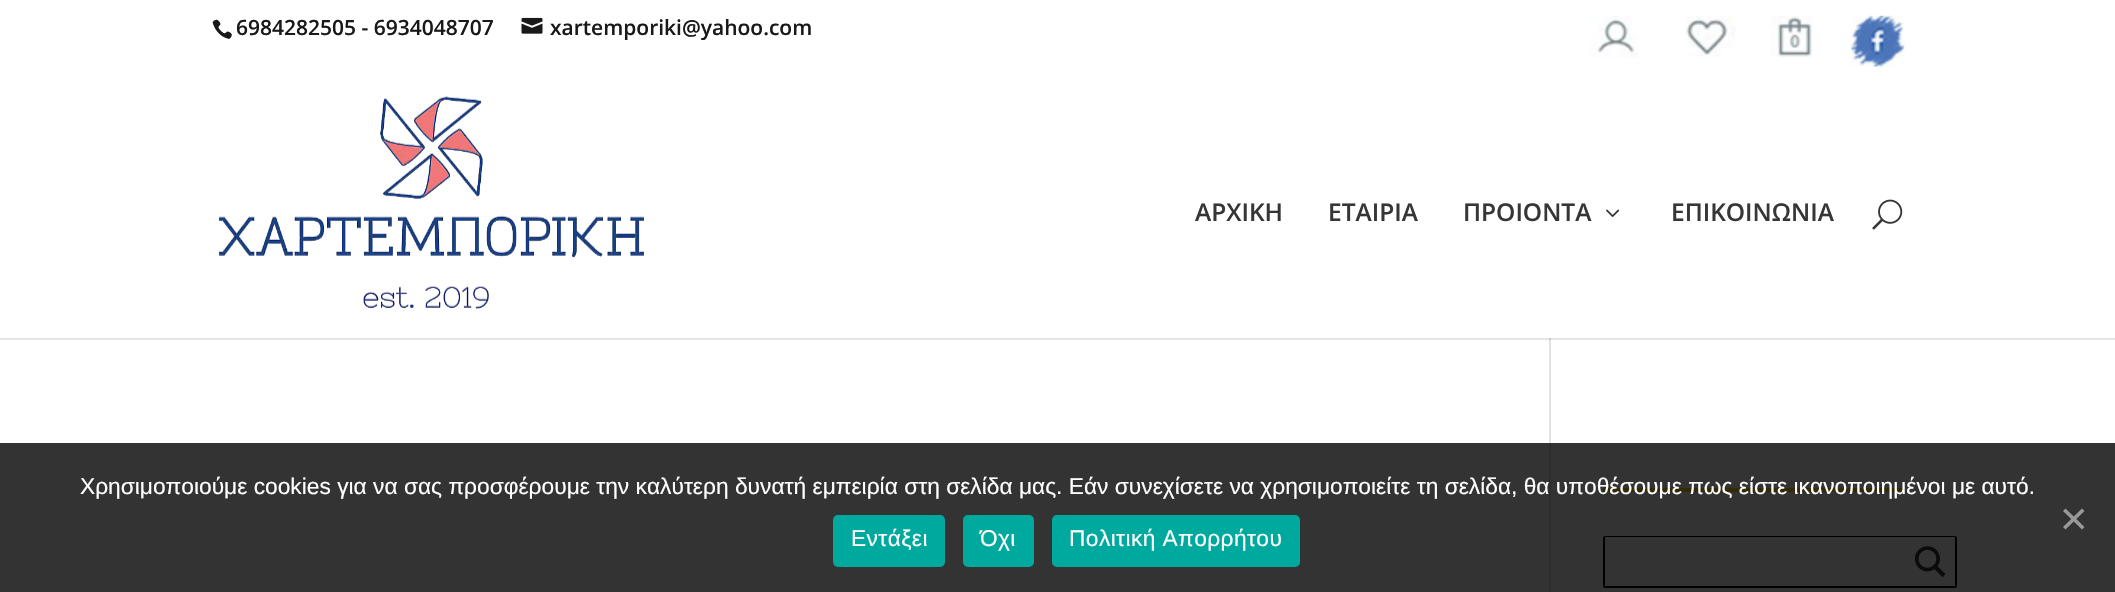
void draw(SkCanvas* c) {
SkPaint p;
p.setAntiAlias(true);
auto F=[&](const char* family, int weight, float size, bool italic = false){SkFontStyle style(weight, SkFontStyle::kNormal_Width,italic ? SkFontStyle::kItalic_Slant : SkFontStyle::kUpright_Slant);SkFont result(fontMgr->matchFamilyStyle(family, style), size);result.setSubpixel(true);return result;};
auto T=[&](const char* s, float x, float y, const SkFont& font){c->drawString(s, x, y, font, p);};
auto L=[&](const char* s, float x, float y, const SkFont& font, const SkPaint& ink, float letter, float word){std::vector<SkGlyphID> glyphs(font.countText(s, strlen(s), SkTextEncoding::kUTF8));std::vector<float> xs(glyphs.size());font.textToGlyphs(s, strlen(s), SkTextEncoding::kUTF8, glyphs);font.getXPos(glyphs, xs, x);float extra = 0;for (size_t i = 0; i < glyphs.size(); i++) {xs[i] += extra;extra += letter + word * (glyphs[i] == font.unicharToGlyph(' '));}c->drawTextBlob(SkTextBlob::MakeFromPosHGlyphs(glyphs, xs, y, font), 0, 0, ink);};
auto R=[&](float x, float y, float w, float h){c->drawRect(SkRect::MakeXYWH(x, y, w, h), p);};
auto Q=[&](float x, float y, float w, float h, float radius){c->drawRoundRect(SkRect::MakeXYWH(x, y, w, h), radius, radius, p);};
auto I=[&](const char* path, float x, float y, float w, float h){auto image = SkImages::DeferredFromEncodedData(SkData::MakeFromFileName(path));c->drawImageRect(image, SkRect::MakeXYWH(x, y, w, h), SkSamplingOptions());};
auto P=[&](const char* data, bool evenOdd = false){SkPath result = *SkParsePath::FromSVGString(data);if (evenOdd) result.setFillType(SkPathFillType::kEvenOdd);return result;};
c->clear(0xffffffff);
I("1.png",212,19,20,20);
auto f1 = F("Open Sans",600,21);
p.setColor(0xff191919);
T("6984282505 - 6934048707",236,35,f1);
I("2.png",521,17,22,17);
T("xartemporiki@yahoo.com",550,35,f1);
I("3.png",1589,16,49,42);
I("4.png",1686,16,50,41);
I("5.png",1770,16,42,41);
I("6.png",1851,15,54,52);
p.setColor(0xffe2e2e2);
R(1549,338,2,254);
p.setColor(0x1a000000);
c->drawPath(P("M0 338v2h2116v-252v250z"),p);
I("7.png",218,96,426,213);
auto f2 = F("Open Sans",600,24.5);
p.setColor(0xff363636);
T("ΑΡΧΙΚΗ",1195,221,f2);
T("ΕΤΑΙΡΙΑ",1328,221,f2);
T("ΠΡΟΙΟΝΤΑ",1463,221,f2);
I("8.png",1606,209,14,8);
T("ΕΠΙΚΟΙΝΩΝΙΑ",1671,221,f2);
I("9.png",1872,199,31,31);
p.setColor(0xfffcd21d);
R(1603,488,301,4);
p.setStroke(true);
p.setStrokeWidth(2);
p.setColor(0xff000000);
c->drawRoundRect(SkRect::MakeXYWH(1604,537,352,50),1,1,p);
p.setStroke(false);
p.setColor(0xffffffff);
R(1605,537,350,1);
I("10.png",1914,546,32,32);
p.setColor(0xcc000000);
R(0,443,2115,149);
auto f3 = F("Liberation Sans",400,22.75);
p.setColor(0xffffffff);
T("Χρησιμοποιούμε cookies για να σας προσφέρουμε την καλύτερη δυνατή εμπειρία στη σελίδα μας. Εάν συνεχίσετε να χρησιμοποιείτε τη σελίδα, θα υποθέσουμε πως είστε ικανοποιημένοι με αυτό.",80,494,f3);
p.setColor(0xff999999);
c->drawPath(P("M2082 508.5l2.5 2.5l-19 18.5l-2.5-2.5z"),p);
c->drawPath(P("M2063 511l2.5-2.5l19 18.5l-2.5 2.5z"),p);
p.setColor(0xff00a99d);
Q(833,515,112,52,5);
p.setColor(0xffffffff);
L("Εντάξει",851,546,f3,p,.4,0);
p.setColor(0xff00a99d);
Q(963,515,71,52,5);
p.setColor(0xffffffff);
L("Όχι",980,546,f3,p,.4,0);
p.setColor(0xff00a99d);
Q(1052,515,248,52,5);
p.setColor(0xffffffff);
L("Πολιτική Απορρήτου",1069,546,f3,p,.4,0);
}
